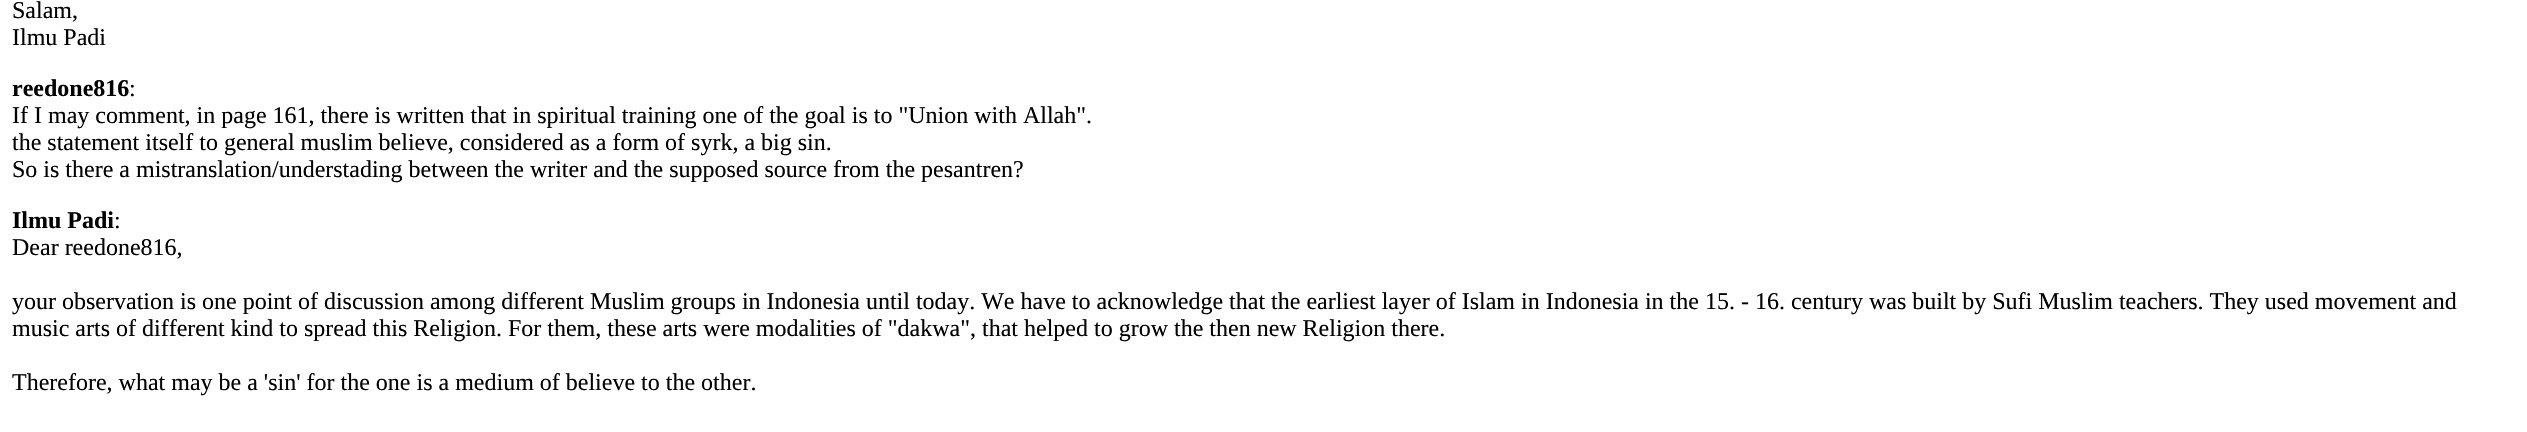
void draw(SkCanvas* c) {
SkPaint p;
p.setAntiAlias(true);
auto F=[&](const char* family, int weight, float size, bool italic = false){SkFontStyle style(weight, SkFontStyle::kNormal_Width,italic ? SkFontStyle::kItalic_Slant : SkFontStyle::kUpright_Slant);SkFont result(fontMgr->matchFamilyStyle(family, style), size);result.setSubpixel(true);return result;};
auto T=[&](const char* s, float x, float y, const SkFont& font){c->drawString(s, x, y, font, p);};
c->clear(0xffffffff);
auto f1 = F("Liberation Serif",400,24);
p.setColor(0xff000000);
T("Salam,",12,18,f1);
T("Ilmu Padi",12,45,f1);
auto f2 = F("Liberation Serif",700,24);
T("reedone816",12,96,f2);
T(":",129,96,f1);
T("If I may comment, in page 161, there is written that in spiritual training one of the goal is to \"Union with Allah\".",12,123,f1);
T("the statement itself to general muslim believe, considered as a form of syrk, a big sin.",12,150,f1);
T("So is there a mistranslation/understading between the writer and the supposed source from the pesantren?",12,177,f1);
T("Ilmu Padi",12,228,f2);
T(":",114,228,f1);
T("Dear reedone816,",12,255,f1);
T("your observation is one point of discussion among different Muslim groups in Indonesia until today. We have to acknowledge that the earliest layer of Islam in Indonesia in the 15. - 16. century was built by Sufi Muslim teachers. They used movement and",12,309,f1);
T("music arts of different kind to spread this Religion. For them, these arts were modalities of \"dakwa\", that helped to grow the then new Religion there.",12,336,f1);
T("Therefore, what may be a 'sin' for the one is a medium of believe to the other.",12,390,f1);
}
